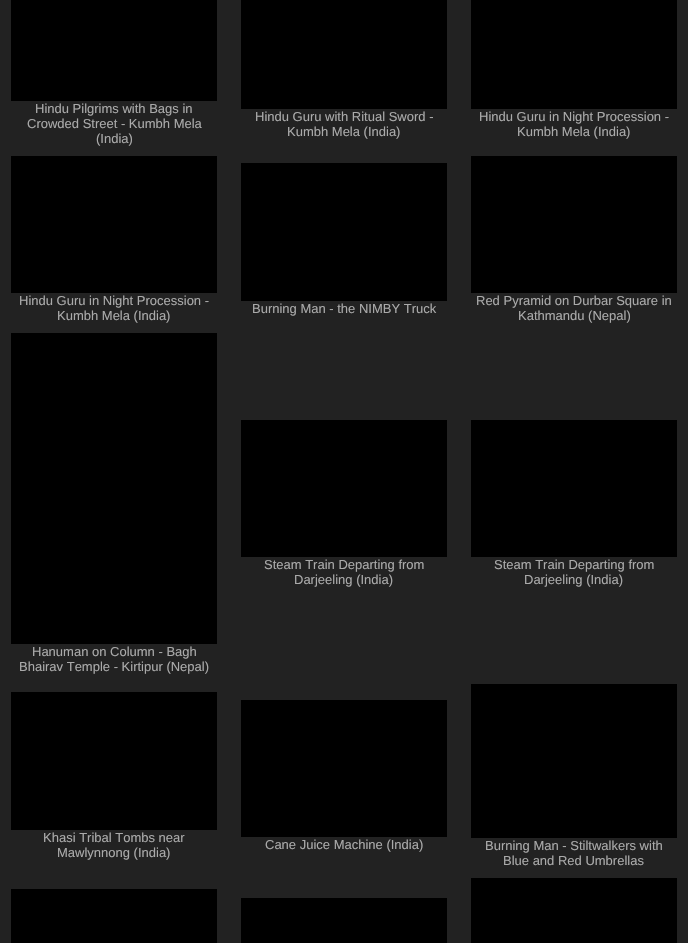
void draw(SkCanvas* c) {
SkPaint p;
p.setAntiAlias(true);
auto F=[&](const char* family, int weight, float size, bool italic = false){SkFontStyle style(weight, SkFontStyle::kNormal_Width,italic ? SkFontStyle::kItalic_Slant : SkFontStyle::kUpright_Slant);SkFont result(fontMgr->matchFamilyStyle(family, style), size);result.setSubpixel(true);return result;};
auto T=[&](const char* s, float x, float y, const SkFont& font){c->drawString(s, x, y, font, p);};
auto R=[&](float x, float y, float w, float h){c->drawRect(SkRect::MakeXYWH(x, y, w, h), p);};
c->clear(0xff222222);
p.setColor(0xff000000);
R(11,0,206,101);
auto f1 = F("Liberation Sans",400,13);
p.setColor(0xffaaaaaa);
T("Hindu Pilgrims with Bags in",35,113,f1);
T("Crowded Street - Kumbh Mela",27,128,f1);
T("(India)",96,143,f1);
p.setColor(0xff000000);
R(241,0,206,109);
p.setColor(0xffaaaaaa);
T("Hindu Guru with Ritual Sword -",255,121,f1);
T("Kumbh Mela (India)",287,136,f1);
p.setColor(0xff000000);
R(471,0,206,109);
p.setColor(0xffaaaaaa);
T("Hindu Guru in Night Procession -",479,121,f1);
T("Kumbh Mela (India)",517,136,f1);
p.setColor(0xff000000);
R(11,156,206,137);
p.setColor(0xffaaaaaa);
T("Hindu Guru in Night Procession -",19,305,f1);
T("Kumbh Mela (India)",57,320,f1);
p.setColor(0xff000000);
R(241,163,206,138);
p.setColor(0xffaaaaaa);
T("Burning Man - the NIMBY Truck",252,313,f1);
p.setColor(0xff000000);
R(471,156,206,137);
p.setColor(0xffaaaaaa);
T("Red Pyramid on Durbar Square in",476,305,f1);
T("Kathmandu (Nepal)",518,320,f1);
p.setColor(0xff000000);
R(241,420,206,137);
p.setColor(0xffaaaaaa);
T("Steam Train Departing from",264,569,f1);
T("Darjeeling (India)",294,584,f1);
p.setColor(0xff000000);
R(471,420,206,137);
p.setColor(0xffaaaaaa);
T("Steam Train Departing from",494,569,f1);
T("Darjeeling (India)",524,584,f1);
p.setColor(0xff000000);
R(11,333,206,311);
p.setColor(0xffaaaaaa);
T("Hanuman on Column - Bagh",32,656,f1);
T("Bhairav Temple - Kirtipur (Nepal)",19,671,f1);
p.setColor(0xff000000);
R(11,692,206,138);
p.setColor(0xffaaaaaa);
T("Khasi Tribal Tombs near",43,842,f1);
T("Mawlynnong (India)",57,857,f1);
p.setColor(0xff000000);
R(241,700,206,137);
p.setColor(0xffaaaaaa);
T("Cane Juice Machine (India)",265,849,f1);
p.setColor(0xff000000);
R(471,684,206,154);
p.setColor(0xffaaaaaa);
T("Burning Man - Stiltwalkers with",485,850,f1);
T("Blue and Red Umbrellas",503,865,f1);
p.setColor(0xff000000);
R(11,889,206,54);
R(241,898,206,45);
R(471,878,206,65);
}
